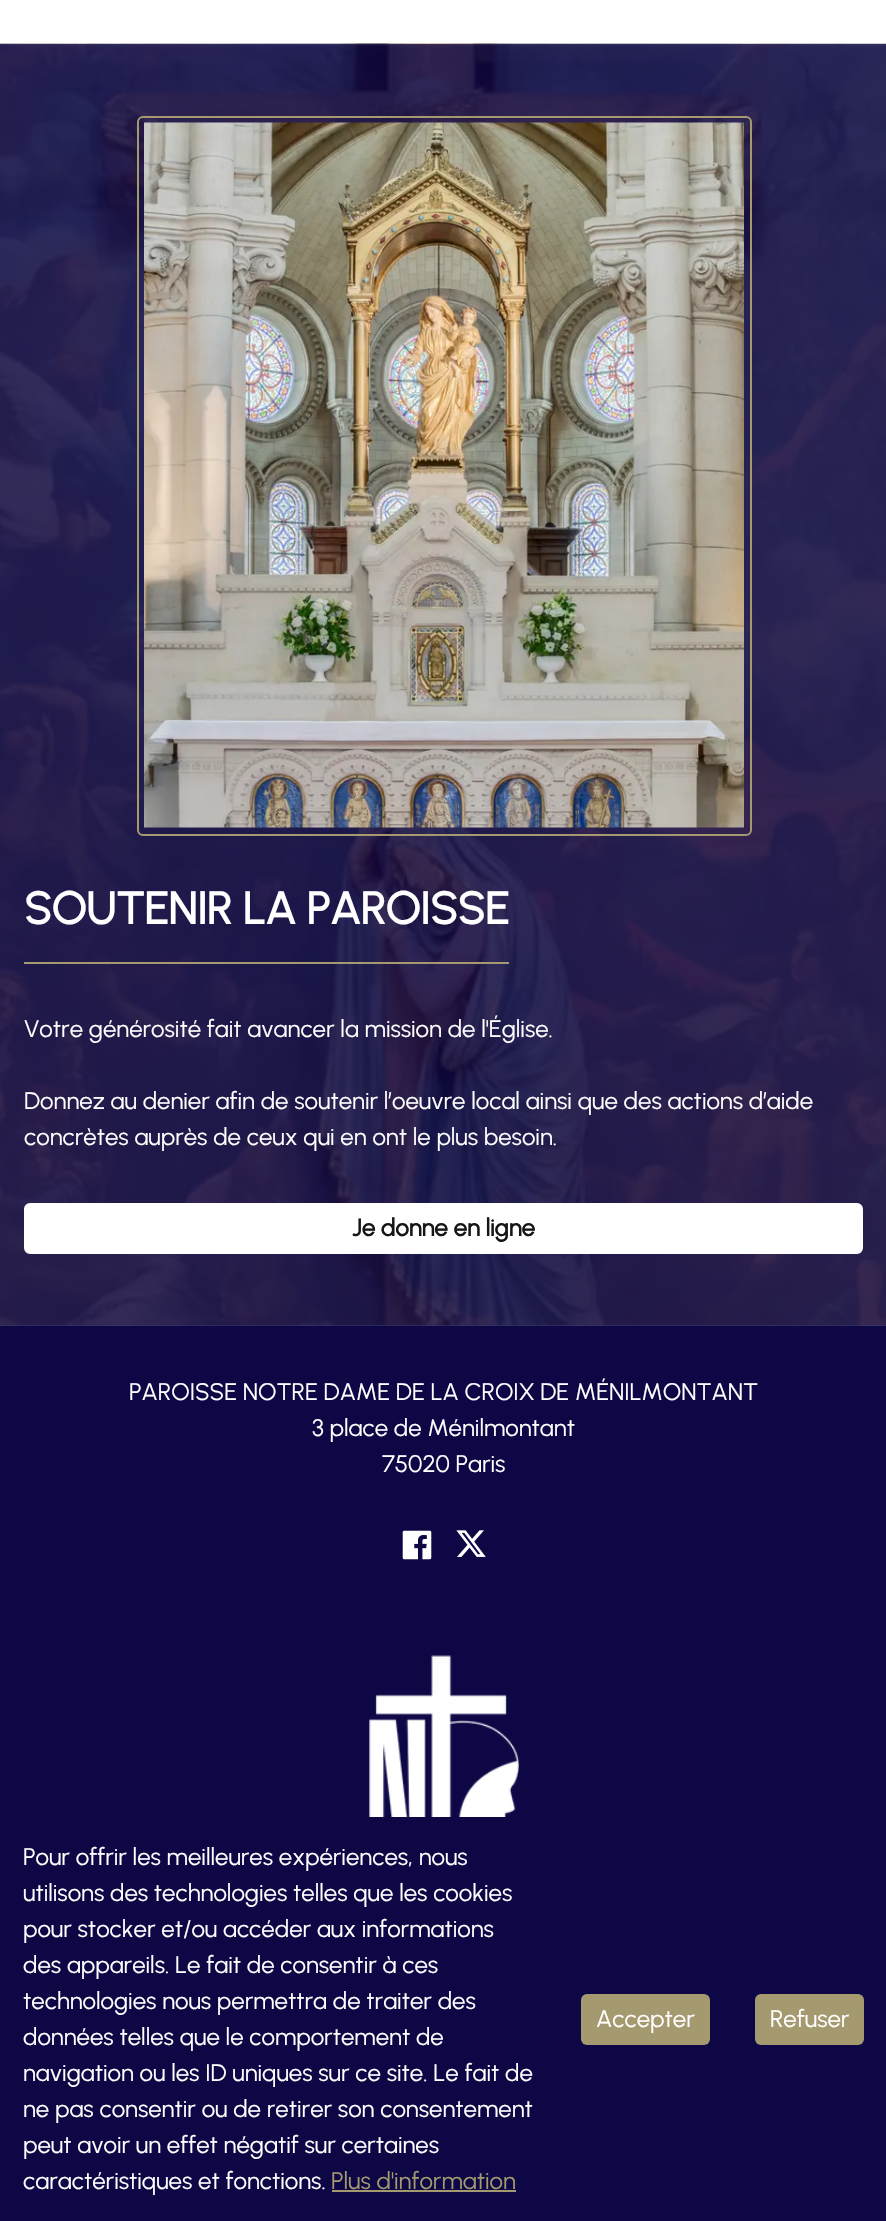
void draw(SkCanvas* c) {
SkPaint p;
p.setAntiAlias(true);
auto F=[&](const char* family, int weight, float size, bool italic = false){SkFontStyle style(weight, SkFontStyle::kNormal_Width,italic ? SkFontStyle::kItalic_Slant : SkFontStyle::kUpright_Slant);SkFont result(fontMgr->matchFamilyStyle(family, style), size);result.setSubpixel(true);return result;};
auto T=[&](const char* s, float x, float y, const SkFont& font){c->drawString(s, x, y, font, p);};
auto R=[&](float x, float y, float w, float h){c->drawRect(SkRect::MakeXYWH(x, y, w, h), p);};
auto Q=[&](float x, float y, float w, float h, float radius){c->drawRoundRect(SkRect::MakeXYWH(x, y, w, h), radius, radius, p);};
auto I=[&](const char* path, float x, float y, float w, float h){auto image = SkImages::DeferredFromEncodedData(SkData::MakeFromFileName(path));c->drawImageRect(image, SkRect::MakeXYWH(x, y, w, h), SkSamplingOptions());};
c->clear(0xffffffff);
p.setColor(0xff3d396b);
R(0,44,886,1282);
I("1.png",0,43,886,1283);
p.setStroke(true);
p.setStrokeWidth(2);
p.setColor(0xffa5996f);
c->drawRoundRect(SkRect::MakeXYWH(138,117,613,718),5,5,p);
I("2.png",144,122,600,706);
p.setStroke(false);
R(24,962,485,2);
auto f1 = F("Urbanist",700,45);
p.setColor(0xffffffff);
T("SOUTENIR LA PAROISSE",24,924,f1);
auto f2 = F("Urbanist",400,24);
T("Votre générosité fait avancer la mission de l'Église.",24,1037,f2);
T("Donnez au denier afin de soutenir l’oeuvre local ainsi que des actions d’aide",24,1109,f2);
T("concrètes auprès de ceux qui en ont le plus besoin.",24,1145,f2);
c->drawRoundRect(SkRect::MakeXYWH(25,1204,837,49),5,5,p);
p.setStroke(true);
c->drawRoundRect(SkRect::MakeXYWH(25,1204,837,49),5,5,p);
auto f3 = F("Urbanist",700,24);
p.setStroke(false);
p.setColor(0xff161616);
T("Je donne en ligne",352,1236,f3);
p.setColor(0xff0d0746);
R(0,1326,886,895);
p.setColor(0xffffffff);
T("PAROISSE NOTRE DAME DE LA CROIX DE MÉNILMONTANT",129,1400,f2);
T("3 place de Ménilmontant",312,1436,f2);
T("75020 Paris",382,1472,f2);
I("3.png",402,1530,30,30);
I("4.png",456,1530,30,27);
I("5.png",369,1655,150,162);
T("Pour offrir les meilleures expériences, nous",23,1865,f2);
T("utilisons des technologies telles que les cookies",23,1901,f2);
T("pour stocker et/ou accéder aux informations",23,1937,f2);
T("des appareils. Le fait de consentir à ces",23,1973,f2);
T("technologies nous permettra de traiter des",23,2009,f2);
T("données telles que le comportement de",23,2045,f2);
T("navigation ou les ID uniques sur ce site. Le fait de",23,2081,f2);
T("ne pas consentir ou de retirer son consentement",23,2117,f2);
T("peut avoir un effet négatif sur certaines",23,2153,f2);
T("caractéristiques et fonctions.",23,2189,f2);
p.setColor(0xffa5996f);
T("Plus d'information",331,2189,f2);
R(332,2190,184,2);
Q(581,1994,129,51,6);
p.setColor(0xffffffff);
T("Accepter",596,2027,f2);
p.setColor(0xffa5996f);
Q(755,1994,109,51,6);
p.setColor(0xffffffff);
T("Refuser",770,2027,f2);
}
